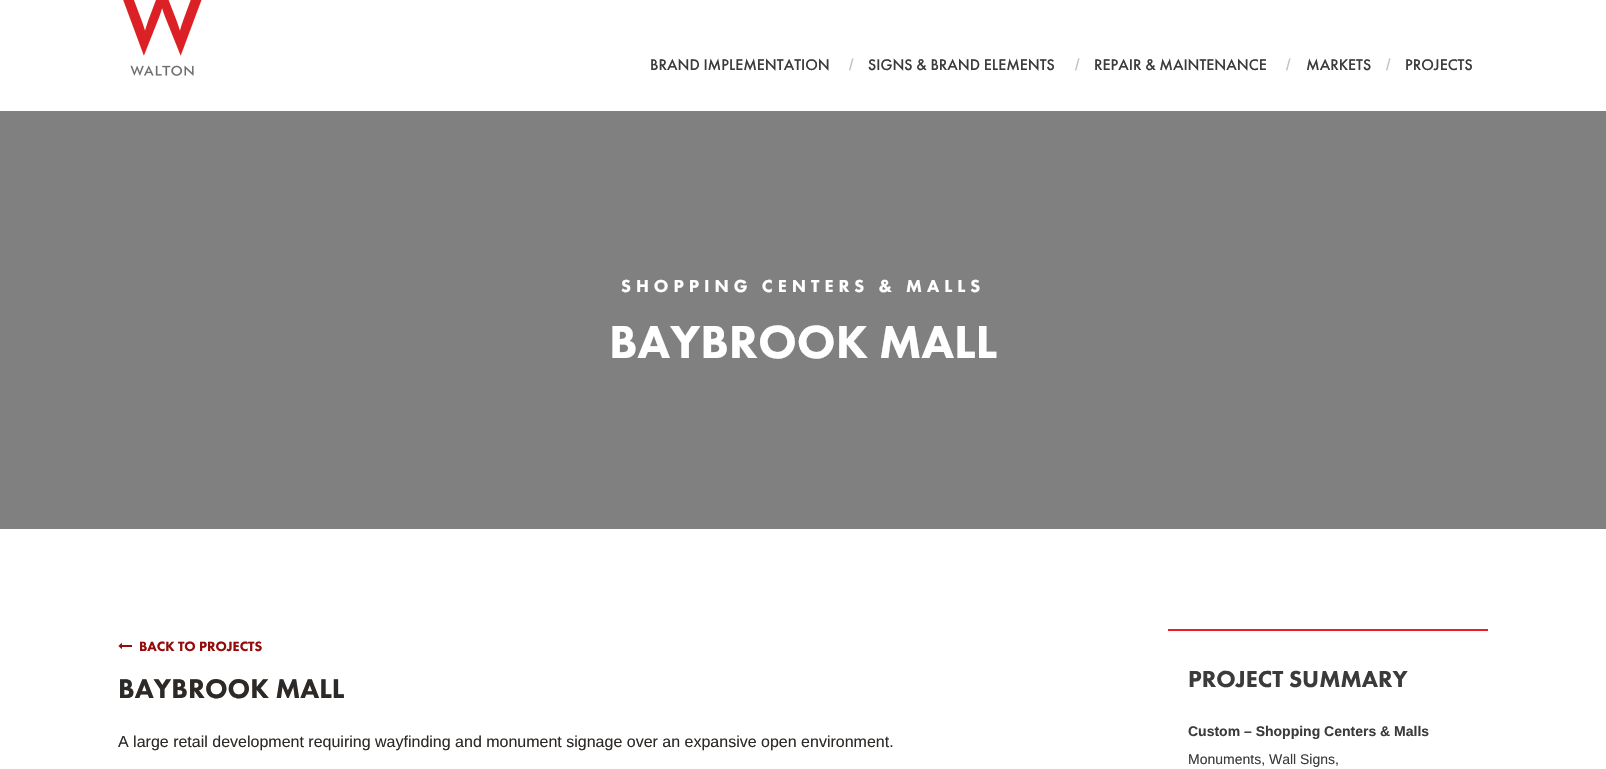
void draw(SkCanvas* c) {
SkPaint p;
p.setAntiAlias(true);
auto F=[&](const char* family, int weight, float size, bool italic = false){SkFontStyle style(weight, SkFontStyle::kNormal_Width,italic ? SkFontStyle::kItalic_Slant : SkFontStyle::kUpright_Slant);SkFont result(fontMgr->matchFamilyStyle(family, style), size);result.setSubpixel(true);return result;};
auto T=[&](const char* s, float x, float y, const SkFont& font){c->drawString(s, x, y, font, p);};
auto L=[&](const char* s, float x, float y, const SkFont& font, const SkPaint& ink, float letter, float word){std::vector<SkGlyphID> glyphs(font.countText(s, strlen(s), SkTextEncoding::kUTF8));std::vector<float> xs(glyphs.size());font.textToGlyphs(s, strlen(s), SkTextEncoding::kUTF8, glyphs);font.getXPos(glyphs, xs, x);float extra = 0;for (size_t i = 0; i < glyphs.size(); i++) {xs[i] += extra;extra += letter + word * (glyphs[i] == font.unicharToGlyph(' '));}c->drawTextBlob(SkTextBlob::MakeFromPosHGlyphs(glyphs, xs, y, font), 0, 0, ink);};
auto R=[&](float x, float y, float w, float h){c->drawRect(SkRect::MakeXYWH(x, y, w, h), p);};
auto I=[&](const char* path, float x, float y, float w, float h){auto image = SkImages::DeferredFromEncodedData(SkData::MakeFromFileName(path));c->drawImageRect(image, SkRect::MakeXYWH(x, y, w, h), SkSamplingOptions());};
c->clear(0xffffffff);
I("1.png",123,0,79,76);
auto f1 = F("Futura PT",500,16);
p.setColor(0xff3b3b3b);
T("BRAND IMPLEMENTATION",650,70,f1);
auto f2 = F("Liberation Sans",400,16);
p.setColor(0xffc0c0c0);
T("/",849,70,f2);
p.setColor(0xff3b3b3b);
T("SIGNS & BRAND ELEMENTS",868,70,f1);
p.setColor(0xffc0c0c0);
T("/",1075,70,f2);
p.setColor(0xff3b3b3b);
T("REPAIR & MAINTENANCE",1094,70,f1);
p.setColor(0xffc0c0c0);
T("/",1286,70,f2);
p.setColor(0xff3b3b3b);
T("MARKETS",1306,70,f1);
p.setColor(0xffc0c0c0);
T("/",1386,70,f2);
p.setColor(0xff3b3b3b);
T("PROJECTS",1405,70,f1);
p.setColor(0xff808080);
R(0,111,1606,418);
auto f3 = F("Futura PT",900,18);
p.setColor(0xffffffff);
L("SHOPPING CENTERS & MALLS",621,292,f3,p,5,0);
auto f4 = F("Futura PT",900,48);
T("BAYBROOK MALL",609,358,f4);
I("2.png",118,643,14,6);
auto f5 = F("Futura PT",900,14);
p.setColor(0xff940c0c);
T("BACK TO PROJECTS",139,651,f5);
auto f6 = F("Futura PT",900,28);
p.setColor(0xff2d2926);
T("BAYBROOK MALL",118,698,f6);
T("A large retail development requiring wayfinding and monument signage over an expansive open environment.",118,747,f2);
p.setColor(0xffec1d24);
R(1168,629,320,2);
auto f7 = F("Futura PT",900,24);
p.setColor(0xff3b3b3b);
T("PROJECT SUMMARY",1188,687,f7);
auto f8 = F("Liberation Sans",700,14);
T("Custom – Shopping Centers & Malls",1188,736,f8);
auto f9 = F("Liberation Sans",400,14);
T("Monuments, Wall Signs,",1188,764,f9);
}
